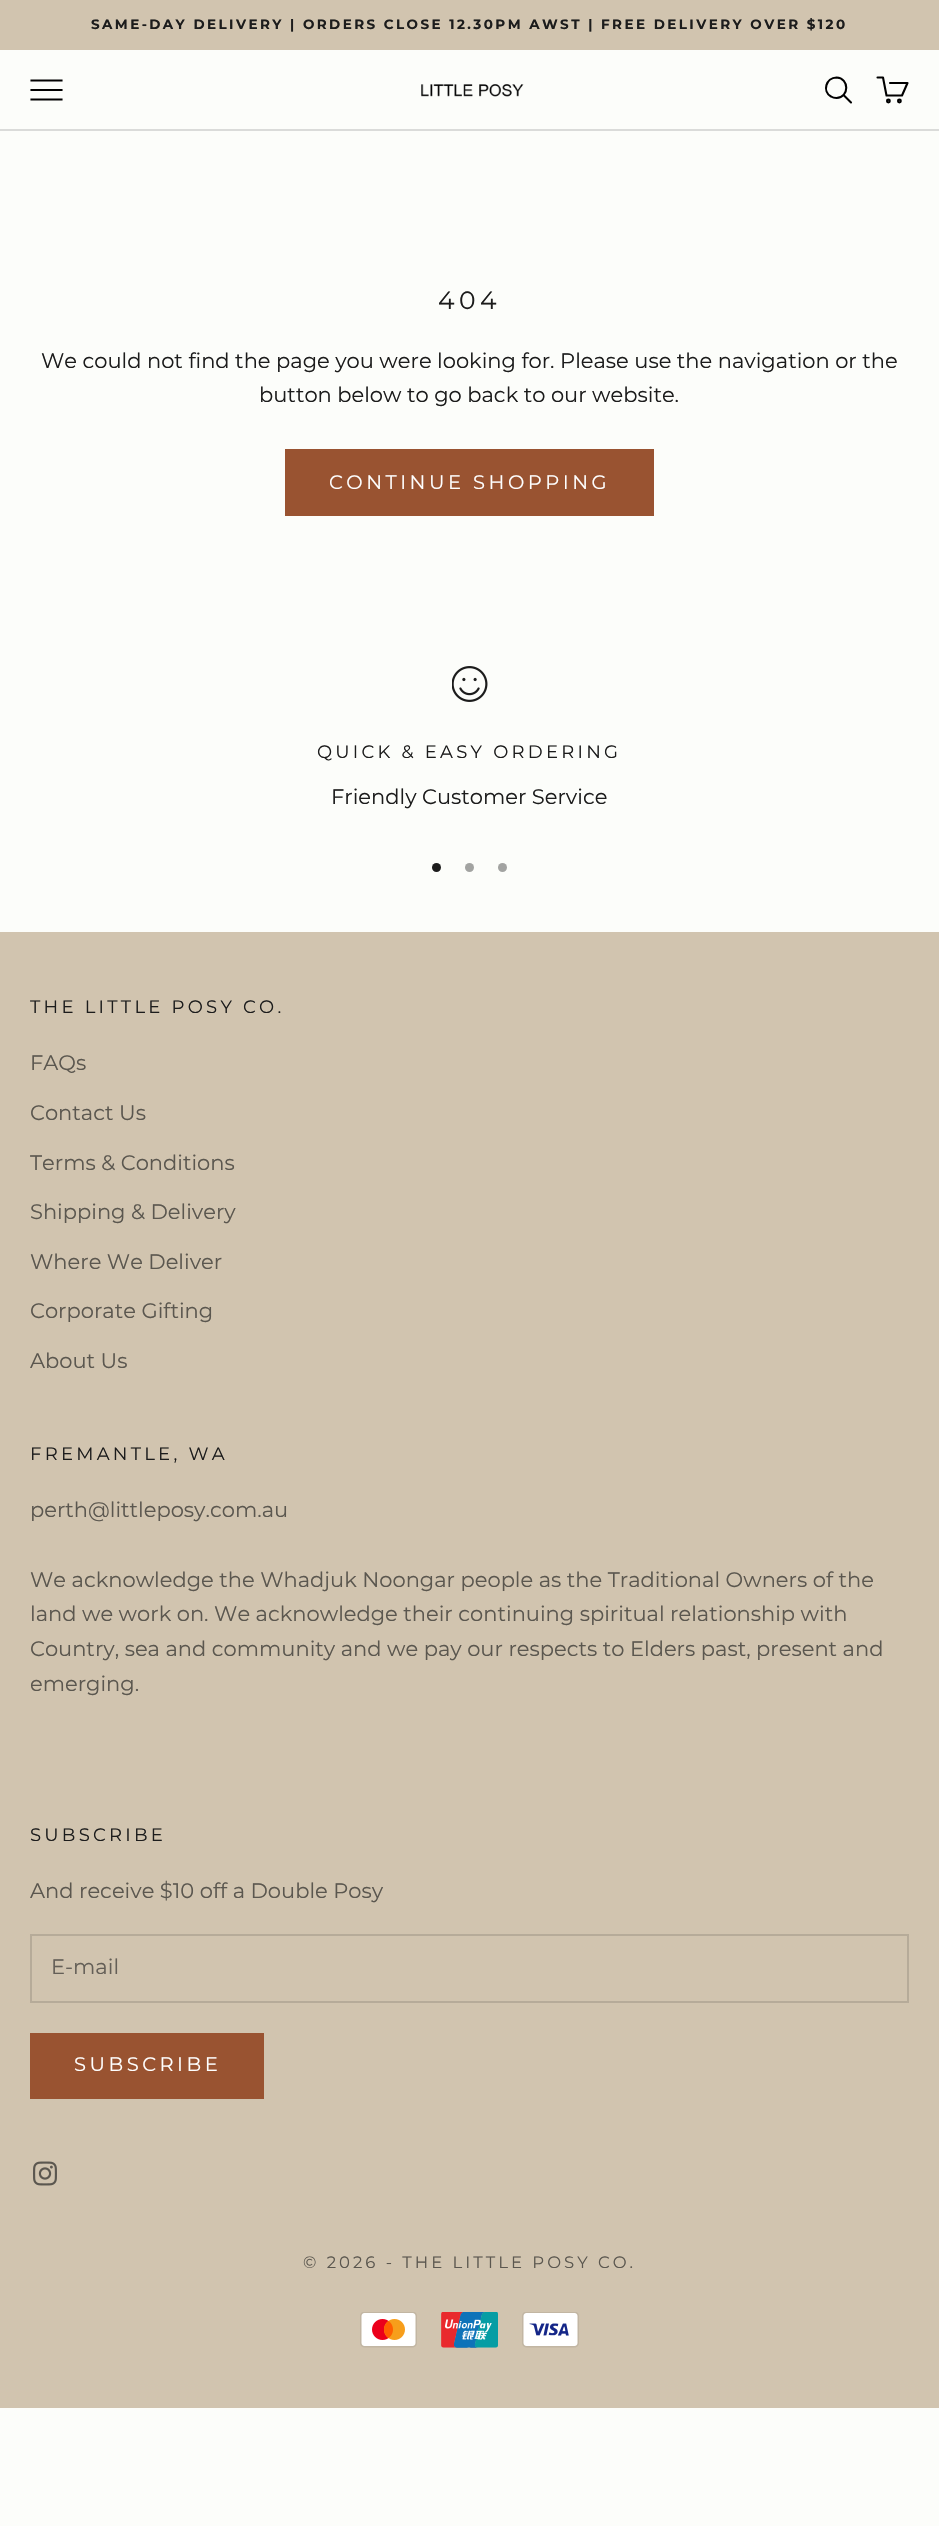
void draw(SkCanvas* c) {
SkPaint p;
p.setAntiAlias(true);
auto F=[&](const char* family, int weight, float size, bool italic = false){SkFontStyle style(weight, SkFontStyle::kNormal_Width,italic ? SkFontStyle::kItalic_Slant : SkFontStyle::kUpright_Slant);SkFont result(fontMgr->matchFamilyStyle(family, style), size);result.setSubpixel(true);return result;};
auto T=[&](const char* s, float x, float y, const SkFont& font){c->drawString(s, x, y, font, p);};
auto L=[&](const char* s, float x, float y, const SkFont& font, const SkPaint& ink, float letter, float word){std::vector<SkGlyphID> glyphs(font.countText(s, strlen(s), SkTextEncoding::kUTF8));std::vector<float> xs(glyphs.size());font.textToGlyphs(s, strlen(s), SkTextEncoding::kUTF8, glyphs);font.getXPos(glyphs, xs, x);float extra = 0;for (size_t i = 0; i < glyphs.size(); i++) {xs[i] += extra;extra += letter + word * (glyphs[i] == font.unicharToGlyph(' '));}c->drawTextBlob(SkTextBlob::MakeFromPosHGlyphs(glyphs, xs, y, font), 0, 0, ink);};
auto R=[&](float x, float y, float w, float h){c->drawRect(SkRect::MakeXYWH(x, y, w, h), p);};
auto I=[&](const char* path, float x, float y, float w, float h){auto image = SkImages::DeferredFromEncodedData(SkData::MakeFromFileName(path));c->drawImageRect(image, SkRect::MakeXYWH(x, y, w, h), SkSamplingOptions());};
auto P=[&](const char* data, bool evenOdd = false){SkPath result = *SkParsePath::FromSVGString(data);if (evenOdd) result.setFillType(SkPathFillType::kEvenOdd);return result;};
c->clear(0xfffcfdfa);
p.setColor(0xffd1c4af);
R(0,0,939,50);
auto f1 = F("Montserrat",700,13.5);
p.setColor(0xff1c1c1c);
L("SAME-DAY DELIVERY | ORDERS CLOSE 12.30PM AWST | FREE DELIVERY OVER $120",91,29,f1,p,2.43,0);
p.setColor(0xffdadbd9);
R(0,129,939,2);
p.setStroke(true);
p.setStrokeWidth(2.1);
p.setStrokeCap(SkPaint::kSquare_Cap);
p.setColor(0xff000000);
c->drawPath(P("M31.5 99.5h30m-30-9.5h30m-30-9.5h30"),p);
I("1.png",421,84,103,13);
p.setStrokeCap(SkPaint::kButt_Cap);
c->drawPath(P("M836.5 77.5c-10.5 0-14.5 14-5.5 19c1.5 1 3.5 1.5 5.5 1.5c13-.5 13-20 0-20.5z"),p);
p.setStrokeCap(SkPaint::kRound_Cap);
c->drawPath(P("M844 95.5l7 7"),p);
p.setStrokeJoin(SkPaint::kRound_Join);
c->drawPath(P("M890 83h17.5l-5.5 12.5h-15.5l-3.5-18h-5.5"),p);
p.setStrokeCap(SkPaint::kButt_Cap);
p.setStrokeJoin(SkPaint::kMiter_Join);
c->drawCircle(888.4,101,1.4,p);
c->drawCircle(899.4,101,1.4,p);
auto f2 = F("Montserrat",400,25);
p.setStroke(false);
p.setColor(0xff1c1c1c);
L("404",438,309,f2,p,4.5,0);
auto f3 = F("Montserrat",400,21);
T("We could not find the page you were looking for. Please use the navigation or the",41,368,f3);
T("button below to go back to our website.",259,402,f3);
p.setColor(0xff995331);
c->drawRect(SkRect::MakeXYWH(286,450,367,65),p);
p.setStroke(true);
p.setStrokeWidth(2);
c->drawRect(SkRect::MakeXYWH(286,450,367,65),p);
auto f4 = F("Montserrat",400,19.5);
p.setStroke(false);
p.setColor(0xffffffff);
L("CONTINUE SHOPPING",329,489,f4,p,3.5,0);
I("2.png",452,666,36,36);
auto f5 = F("Montserrat",400,18);
p.setColor(0xff1c1c1c);
L("QUICK & EASY ORDERING",317,758,f5,p,3.25,0);
T("Friendly Customer Service",331,804,f3);
c->drawCircle(436.5,867.5,4.5,p);
p.setColor(0xffa2a3a1);
c->drawCircle(469.5,867.5,4.5,p);
c->drawCircle(502.5,867.5,4.5,p);
p.setColor(0xffd1c4af);
R(0,932,939,1476);
p.setColor(0xff1c1c1c);
L("THE LITTLE POSY CO.",30,1013,f5,p,3.25,0);
p.setColor(0xff5b574f);
T("FAQs",30,1070,f3);
T("Contact Us",30,1120,f3);
T("Terms & Conditions",30,1170,f3);
T("Shipping & Delivery",30,1219,f3);
T("Where We Deliver",30,1269,f3);
T("Corporate Gifting",30,1318,f3);
T("About Us",30,1368,f3);
p.setColor(0xff1c1c1c);
L("FREMANTLE, WA",30,1460,f5,p,3.25,0);
p.setColor(0xff5b574f);
T("perth@littleposy.com.au",30,1517,f3);
T("We acknowledge the Whadjuk Noongar people as the Traditional Owners of the",30,1587,f3);
T("land we work on. We acknowledge their continuing spiritual relationship with",30,1621,f3);
T("Country, sea and community and we pay our respects to Elders past, present and",30,1656,f3);
T("emerging.",30,1691,f3);
p.setColor(0xff1c1c1c);
L("SUBSCRIBE",30,1841,f5,p,3.25,0);
p.setColor(0xff5b574f);
T("And receive $10 off a Double Posy",30,1898,f3);
p.setStroke(true);
p.setColor(0xffb6ab99);
c->drawRect(SkRect::MakeXYWH(31,1935,877,67),p);
p.setStroke(false);
p.setColor(0xff645f57);
T("E-mail",51,1974,f3);
p.setColor(0xff995331);
c->drawRect(SkRect::MakeXYWH(31,2034,232,64),p);
p.setStroke(true);
c->drawRect(SkRect::MakeXYWH(31,2034,232,64),p);
p.setStroke(false);
p.setColor(0xffffffff);
L("SUBSCRIBE",74,2071,f4,p,3.5,0);
I("3.png",33,2161,24,25);
auto f6 = F("Montserrat",400,16.5);
p.setColor(0xff5b574f);
L("© 2026 - THE LITTLE POSY CO.",303,2268,f6,p,3,0);
I("4.png",360,2312,57,36);
I("5.png",441,2312,57,36);
I("6.png",522,2312,57,36);
}
